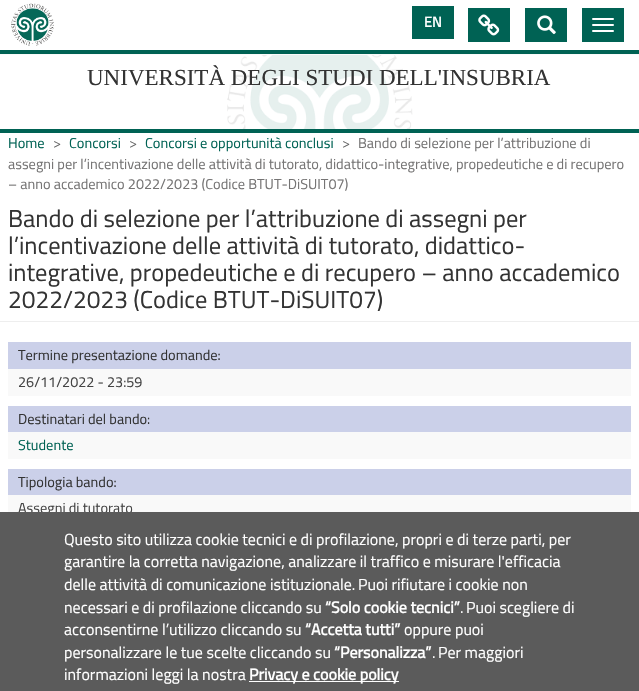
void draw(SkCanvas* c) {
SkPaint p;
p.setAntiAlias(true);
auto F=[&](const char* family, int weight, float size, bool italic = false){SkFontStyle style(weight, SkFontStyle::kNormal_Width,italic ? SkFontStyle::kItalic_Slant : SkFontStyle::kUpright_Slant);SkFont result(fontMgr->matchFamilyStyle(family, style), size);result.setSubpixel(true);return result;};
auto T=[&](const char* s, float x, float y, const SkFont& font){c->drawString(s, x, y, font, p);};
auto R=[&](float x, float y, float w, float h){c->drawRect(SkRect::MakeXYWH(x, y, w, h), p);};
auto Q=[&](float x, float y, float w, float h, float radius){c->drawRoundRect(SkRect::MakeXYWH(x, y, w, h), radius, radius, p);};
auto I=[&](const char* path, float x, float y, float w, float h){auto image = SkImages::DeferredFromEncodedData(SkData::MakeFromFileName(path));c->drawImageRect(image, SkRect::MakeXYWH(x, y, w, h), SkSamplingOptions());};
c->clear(0xffffffff);
p.setColor(0xff006254);
R(0,50,639,4);
R(582,8,42,34);
p.setColor(0xffffffff);
Q(592,18,22,2,1);
Q(592,24,22,2,1);
Q(592,30,22,2,1);
p.setColor(0xff006254);
R(412,6,42,33);
auto f1 = F("Titillium Web",700,14.4);
p.setColor(0xffffffff);
T("EN",424,27,f1);
p.setColor(0xff006254);
R(468,8,42,34);
I("1.png",478,14,22,22);
I("2.png",227,55,186,74);
p.setColor(0xfffafafa);
R(0,54,639,1);
p.setColor(0xff006254);
R(525,8,42,34);
I("3.png",537,15,19,20);
I("4.png",11,3,43,43);
R(0,129,639,4);
auto f2 = F("Liberation Serif",400,23);
p.setColor(0xff333333);
T("UNIVERSITÀ DEGLI STUDI DELL'INSUBRIA",87,85,f2);
auto f3 = F("Titillium Web",400,14.4);
p.setColor(0xff006254);
T("Home",8,148,f3);
p.setColor(0xff666666);
T(">",53,148,f3);
p.setColor(0xff006254);
T("Concorsi",69,148,f3);
p.setColor(0xff666666);
T(">",129,148,f3);
p.setColor(0xff006254);
T("Concorsi e opportunità conclusi",145,148,f3);
p.setColor(0xff666666);
T(">",342,148,f3);
p.setColor(0xff757474);
T("Bando di selezione per l’attribuzione di",358,148,f3);
T("assegni per l’incentivazione delle attività di tutorato, didattico-integrative, propedeutiche e di recupero",8,169,f3);
T("– anno accademico 2022/2023 (Codice BTUT-DiSUIT07)",8,189,f3);
p.setColor(0xffeeeeee);
R(0,321,639,1);
auto f4 = F("Titillium Web",400,24.5);
p.setColor(0xff333333);
T("Bando di selezione per l’attribuzione di assegni per",8,227,f4);
T("l’incentivazione delle attività di tutorato, didattico-",8,254,f4);
T("integrative, propedeutiche e di recupero – anno accademico",8,281,f4);
T("2022/2023 (Codice BTUT-DiSUIT07)",8,308,f4);
p.setColor(0xfff9f9f9);
R(8,369,623,27);
p.setColor(0xffcbd0e9);
R(8,342,623,27);
p.setColor(0xff333333);
T("Termine presentazione domande:",18,360,f3);
p.setColor(0xff444444);
T("26/11/2022 - 23:59",18,387,f3);
p.setColor(0xfff9f9f9);
R(8,432,623,27);
p.setColor(0xffcbd0e9);
R(8,406,623,26);
p.setColor(0xff333333);
T("Destinatari del bando:",18,424,f3);
p.setColor(0xff006254);
T("Studente",18,450,f3);
p.setColor(0xfff9f9f9);
R(8,495,623,17);
p.setColor(0xffcbd0e9);
R(8,469,623,26);
p.setColor(0xff333333);
T("Tipologia bando:",18,487,f3);
p.setColor(0xff444444);
T("Assegni di tutorato",18,513,f3);
p.setColor(0xff5b5b5b);
R(0,512,639,179);
auto f5 = F("Titillium Web",400,16);
p.setColor(0xffffffff);
T("Questo sito utilizza cookie tecnici e di profilazione, propri e di terze parti, per",64,545,f5);
T("garantire la corretta navigazione, analizzare il traffico e misurare l'efficacia",64,567,f5);
T("delle attività di comunicazione istituzionale.",64,590,f5);
T("Puoi rifiutare i cookie non",358,590,f5);
T("necessari e di profilazione cliccando su",64,613,f5);
auto f6 = F("Titillium Web",700,16);
T("“Solo cookie tecnici”",325,613,f6);
T(".",460,613,f5);
T("Puoi scegliere di",466,613,f5);
T("acconsentirne l’utilizzo cliccando su",64,635,f5);
T("“Accetta tutti”",305,635,f6);
T("oppure puoi",404,635,f5);
T("personalizzare le tue scelte cliccando su",64,658,f5);
T("“Personalizza”",334,658,f6);
T(".",432,658,f5);
T("Per maggiori",438,658,f5);
T("informazioni leggi la nostra",64,680,f5);
R(249,681,150,1);
T("Privacy e cookie policy",249,680,f6);
}
